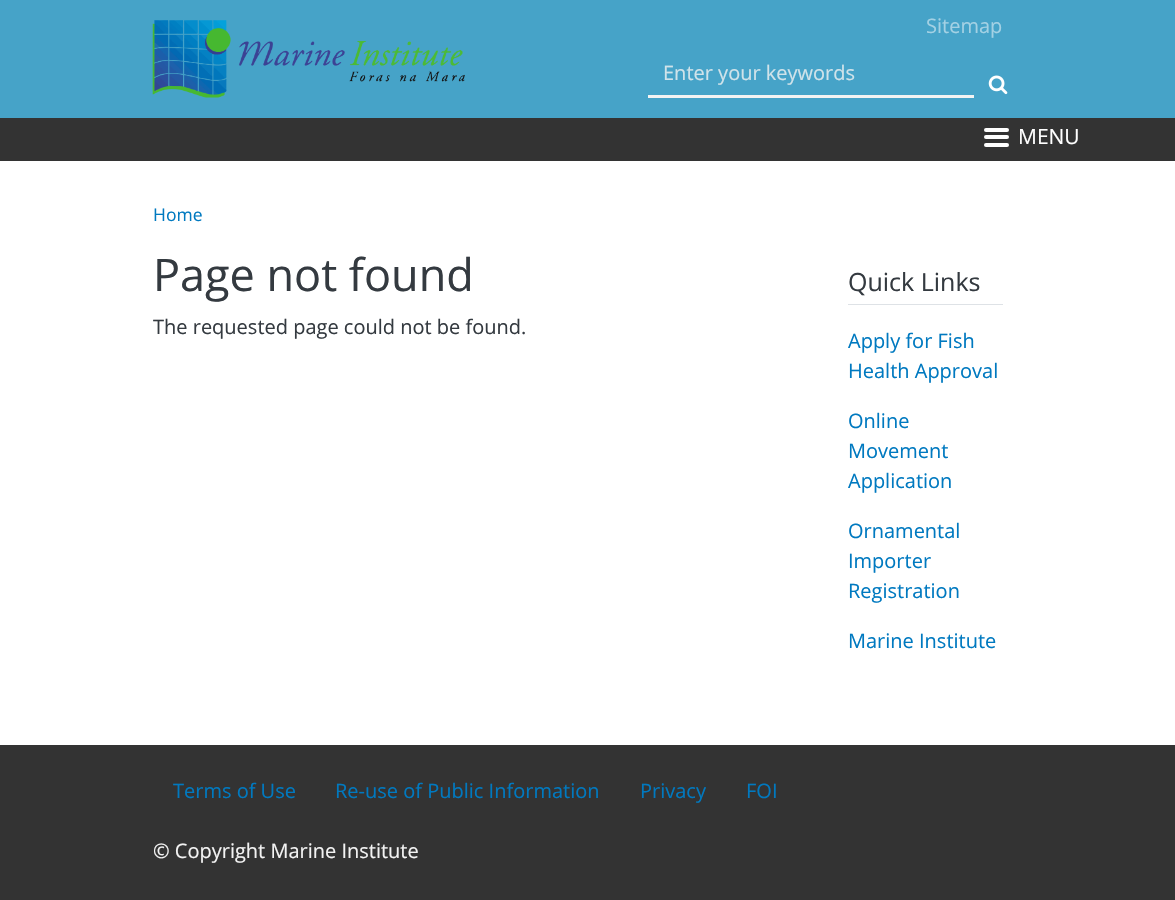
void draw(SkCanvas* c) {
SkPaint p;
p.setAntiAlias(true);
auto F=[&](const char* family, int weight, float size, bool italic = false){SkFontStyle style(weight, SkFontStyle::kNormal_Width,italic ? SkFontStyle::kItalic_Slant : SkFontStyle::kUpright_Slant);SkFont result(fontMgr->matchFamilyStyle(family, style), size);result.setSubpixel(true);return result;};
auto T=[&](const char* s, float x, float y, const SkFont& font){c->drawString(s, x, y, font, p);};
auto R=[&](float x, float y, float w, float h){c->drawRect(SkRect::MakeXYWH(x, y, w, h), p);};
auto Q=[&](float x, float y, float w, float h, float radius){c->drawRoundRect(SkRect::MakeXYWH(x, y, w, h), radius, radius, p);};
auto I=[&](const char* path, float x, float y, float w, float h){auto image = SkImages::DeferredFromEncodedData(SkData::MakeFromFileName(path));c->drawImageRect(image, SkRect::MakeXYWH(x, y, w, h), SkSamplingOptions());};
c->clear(0xffffffff);
p.setColor(0xff46a3c8);
R(0,0,1175,118);
I("1.png",152,20,313,78);
auto f1 = F("Open Sans",400,20);
p.setColor(0xffa3d1e4);
T("Sitemap",926,33,f1);
p.setColor(0xfff3f3f3);
R(648,95,326,3);
p.setColor(0xffd0e3ea);
T("Enter your keywords",663,80,f1);
I("2.png",988,75,20,20);
p.setColor(0xff333333);
R(0,118,1175,43);
p.setColor(0xffffffff);
Q(984,128,25,4,2);
auto f2 = F("Open Sans",400,21);
T("MENU",1018,144,f2);
Q(984,135,25,4,2);
Q(984,143,25,4,2);
auto f3 = F("Open Sans",400,17.5);
p.setColor(0xff0079c0);
T("Home",153,221,f3);
auto f4 = F("Open Sans",400,45);
p.setColor(0xff343a40);
T("Page not found",153,291,f4);
T("The requested page could not be found.",153,334,f1);
p.setColor(0xffdee2e6);
R(848,304,155,1);
auto f5 = F("Open Sans",400,25);
p.setColor(0xff343a40);
T("Quick Links",848,291,f5);
p.setColor(0xff0079c0);
T("Apply for Fish",848,348,f1);
T("Health Approval",848,378,f1);
T("Online",848,428,f1);
T("Movement",848,458,f1);
T("Application",848,488,f1);
T("Ornamental",848,538,f1);
T("Importer",848,568,f1);
T("Registration",848,598,f1);
T("Marine Institute",848,648,f1);
p.setColor(0xff333333);
R(0,745,1175,155);
p.setColor(0xff0079c0);
T("Terms of Use",173,798,f1);
T("Re-use of Public Information",335,798,f1);
T("Privacy",640,798,f1);
T("FOI",746,798,f1);
p.setColor(0xfff3f3f3);
T("© Copyright Marine Institute",153,858,f1);
}
